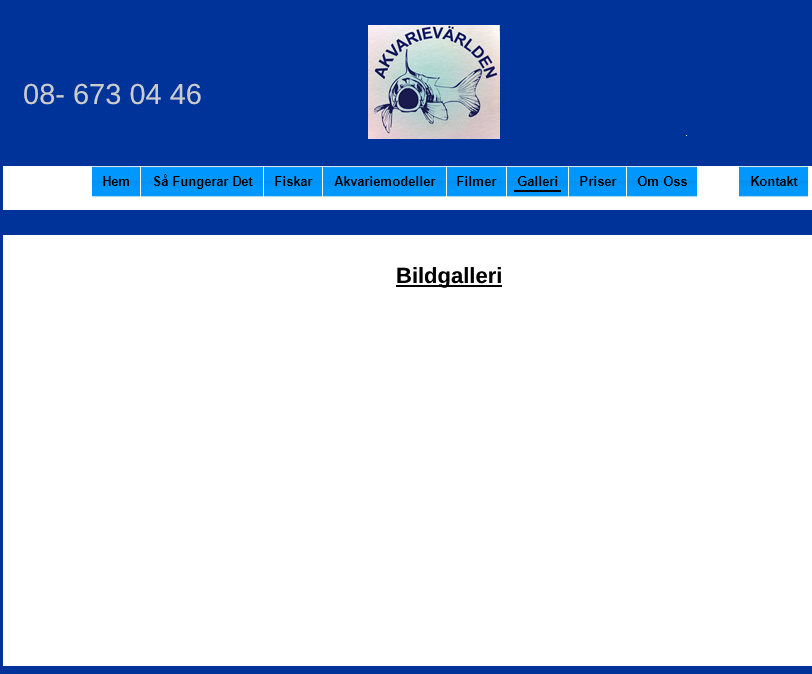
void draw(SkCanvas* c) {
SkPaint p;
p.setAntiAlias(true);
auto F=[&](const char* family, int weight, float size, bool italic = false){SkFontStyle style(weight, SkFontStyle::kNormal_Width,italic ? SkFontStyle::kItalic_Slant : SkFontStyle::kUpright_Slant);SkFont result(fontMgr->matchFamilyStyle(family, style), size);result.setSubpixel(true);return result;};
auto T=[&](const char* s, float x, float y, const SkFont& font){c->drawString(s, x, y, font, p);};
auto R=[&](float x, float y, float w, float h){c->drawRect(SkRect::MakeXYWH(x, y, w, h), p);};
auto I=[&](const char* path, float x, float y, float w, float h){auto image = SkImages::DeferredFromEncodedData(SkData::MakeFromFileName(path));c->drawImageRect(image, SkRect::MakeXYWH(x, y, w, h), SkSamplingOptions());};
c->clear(0xff003399);
auto f1 = F("Liberation Sans",400,29);
p.setColor(0xffcccccc);
T("08- 673 04 46",23,104,f1);
I("1.png",368,25,132,114);
p.setColor(0xffffffff);
R(686,135,1,1);
R(3,166,809,44);
I("2.png",92,166,48,32);
I("3.png",141,166,122,32);
I("4.png",264,166,58,32);
I("5.png",323,166,123,32);
I("6.png",447,166,59,32);
I("7.png",507,166,61,32);
I("8.png",569,166,57,32);
I("9.png",627,166,70,32);
I("10.png",739,166,69,32);
R(3,235,809,431);
p.setColor(0xff000000);
R(396,285,106,2);
auto f2 = F("Liberation Sans",700,22);
T("Bildgalleri",396,283,f2);
}
